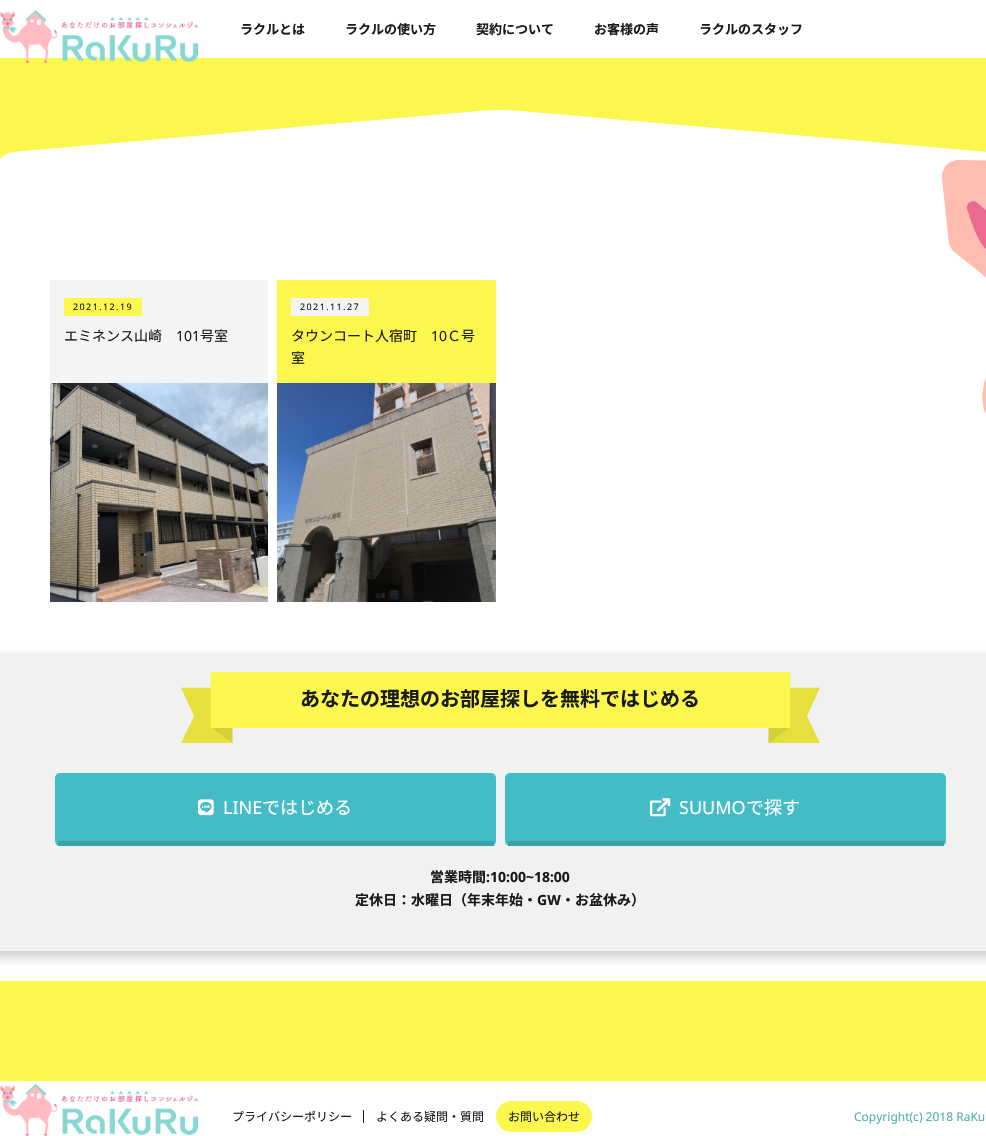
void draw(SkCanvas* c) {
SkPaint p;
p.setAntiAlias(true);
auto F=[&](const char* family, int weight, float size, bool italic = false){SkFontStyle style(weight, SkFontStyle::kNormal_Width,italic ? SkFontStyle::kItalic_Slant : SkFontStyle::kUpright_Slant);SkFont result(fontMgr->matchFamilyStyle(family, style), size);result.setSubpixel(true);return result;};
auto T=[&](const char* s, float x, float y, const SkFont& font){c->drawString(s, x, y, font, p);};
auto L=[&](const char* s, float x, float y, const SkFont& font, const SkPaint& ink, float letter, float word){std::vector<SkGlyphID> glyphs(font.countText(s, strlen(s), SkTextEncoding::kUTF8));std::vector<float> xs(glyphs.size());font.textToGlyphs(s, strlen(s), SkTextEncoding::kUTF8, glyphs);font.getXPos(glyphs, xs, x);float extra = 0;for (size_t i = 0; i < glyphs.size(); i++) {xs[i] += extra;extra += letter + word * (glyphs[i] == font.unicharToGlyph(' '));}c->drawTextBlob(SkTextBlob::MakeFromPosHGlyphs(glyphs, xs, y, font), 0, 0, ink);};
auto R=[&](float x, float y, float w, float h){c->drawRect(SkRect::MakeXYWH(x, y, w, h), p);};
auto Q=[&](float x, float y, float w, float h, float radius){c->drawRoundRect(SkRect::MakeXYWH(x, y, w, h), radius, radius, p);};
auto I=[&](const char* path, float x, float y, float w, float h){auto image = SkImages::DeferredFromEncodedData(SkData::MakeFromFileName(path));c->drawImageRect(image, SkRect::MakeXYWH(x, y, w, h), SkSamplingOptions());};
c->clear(0xfffcf74f);
p.setColor(0xffffffff);
R(0,0,986,58);
I("1.png",0,10,198,53);
auto f1 = F("Noto Sans CJK JP",700,13);
p.setColor(0xff191a1a);
T("ラクルとは",240,34,f1);
T("ラクルの使い方",345,34,f1);
T("契約について",476,34,f1);
T("お客様の声",594,34,f1);
T("ラクルのスタッフ",699,34,f1);
p.setColor(0xffffffff);
R(0,160,986,821);
I("2.png",0,110,986,50);
p.setColor(0xfff4f4f4);
R(50,280,218,103);
p.setColor(0xfffcf74f);
R(64,298,78,18);
auto f2 = F("Noto Sans",400,9);
p.setColor(0xff191a1a);
L("2021.12.19",73,310,f2,p,1.4,0);
auto f3 = F("Noto Sans CJK JP",400,14);
T("エミネンス山崎",64,341,f3);
auto f4 = F("Noto Sans",400,14);
T("101",176,341,f4);
T("号室",200,341,f3);
I("3.png",50,383,218,219);
p.setColor(0xfffcf74f);
R(277,280,219,103);
p.setColor(0xfff4f4f4);
R(291,298,78,18);
p.setColor(0xff191a1a);
L("2021.11.27",300,310,f2,p,1.4,0);
T("タウンコート人宿町",291,341,f3);
T("10",431,341,f4);
T("Ｃ号",447,341,f3);
T("室",291,363,f3);
I("4.png",277,383,219,219);
I("5.png",942,160,44,254);
p.setColor(0x33000000);
p.setMaskFilter(SkMaskFilter::MakeBlur(kNormal_SkBlurStyle, 6));
c->drawRect(SkRect::MakeXYWH(-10,658,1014,299),p);
p.setMaskFilter(nullptr);
p.setColor(0xfff1f1f1);
R(0,652,986,299);
I("6.png",181,672,639,71);
auto f5 = F("Noto Sans CJK JP",700,20);
p.setColor(0xff191a1a);
T("あなたの理想のお部屋探しを無料ではじめる",300,706,f5);
p.setColor(0xff43bcc5);
Q(55,773,441,73,5);
p.setColor(0xff38a3ab);
R(58,841,436,5);
I("7.png",198,799,16,17);
auto f6 = F("Noto Sans",400,18);
p.setColor(0xffffffff);
T("LINE",223,814,f6);
auto f7 = F("Noto Sans CJK JP",400,18);
T("ではじめる",262,814,f7);
p.setColor(0xff43bcc5);
Q(505,773,441,73,5);
p.setColor(0xff38a3ab);
R(508,841,436,5);
I("8.png",650,798,21,19);
p.setColor(0xffffffff);
T("SUUMO",679,814,f6);
T("で探す",746,814,f7);
auto f8 = F("Noto Sans CJK JP",700,14);
p.setColor(0xff191a1a);
T("営業時間",430,882,f8);
auto f9 = F("Noto Sans",700,14);
T(":10:00~18:00",486,882,f9);
T("定休日：水曜日（年末年始・",355,905,f8);
T("GW",537,905,f9);
T("・お盆休み）",561,905,f8);
p.setColor(0xffffffff);
R(0,1081,986,55);
I("9.png",0,1084,198,52);
auto f10 = F("Noto Sans CJK JP",400,12);
p.setColor(0xff191a1a);
T("プライバシーポリシー",232,1121,f10);
R(363,1110,1,13);
T("よくある疑問・質問",376,1121,f10);
p.setColor(0xfffcf74f);
Q(496,1101,96,31,15.5);
p.setColor(0xff191a1a);
T("お問い合わせ",508,1121,f10);
auto f11 = F("Noto Sans",400,12);
p.setColor(0xff54aeae);
T("Copyright(c) 2018 RaKu",854,1121,f11);
}
